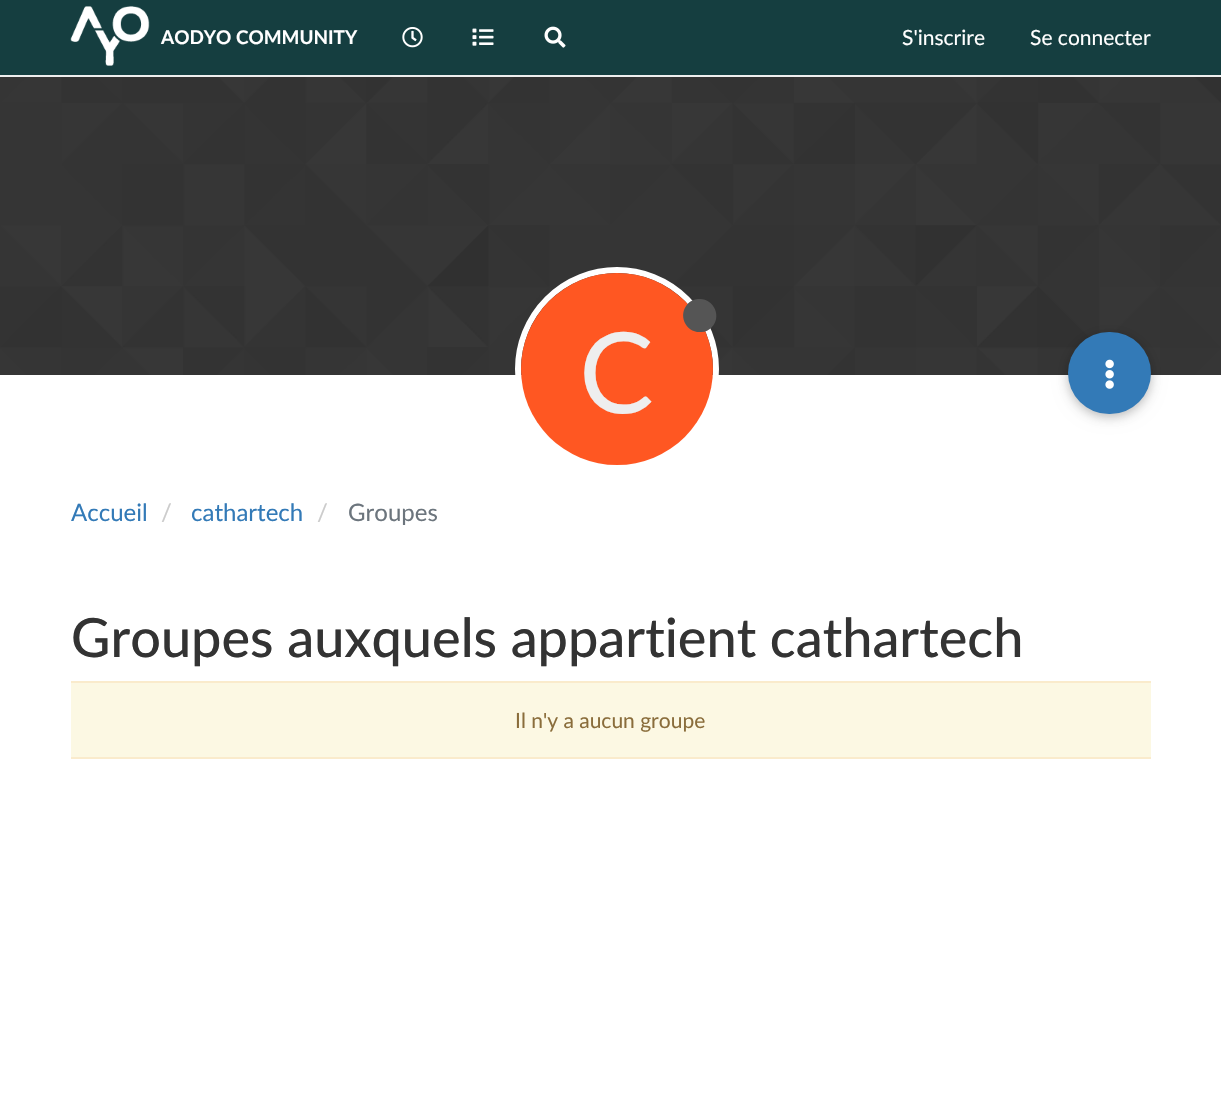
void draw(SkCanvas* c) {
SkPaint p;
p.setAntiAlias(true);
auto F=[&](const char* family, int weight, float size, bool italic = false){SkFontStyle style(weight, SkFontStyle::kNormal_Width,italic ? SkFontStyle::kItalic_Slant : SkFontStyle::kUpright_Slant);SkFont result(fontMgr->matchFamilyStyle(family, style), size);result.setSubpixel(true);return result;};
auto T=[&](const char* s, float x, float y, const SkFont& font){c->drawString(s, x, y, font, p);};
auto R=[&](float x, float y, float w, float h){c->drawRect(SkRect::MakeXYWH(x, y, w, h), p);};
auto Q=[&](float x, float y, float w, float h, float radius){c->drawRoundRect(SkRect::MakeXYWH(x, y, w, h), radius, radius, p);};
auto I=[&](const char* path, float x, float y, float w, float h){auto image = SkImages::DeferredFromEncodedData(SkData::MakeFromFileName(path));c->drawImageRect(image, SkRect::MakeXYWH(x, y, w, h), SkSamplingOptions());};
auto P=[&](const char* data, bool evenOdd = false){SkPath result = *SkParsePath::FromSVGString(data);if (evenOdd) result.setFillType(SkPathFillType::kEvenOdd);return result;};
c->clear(0xffffffff);
p.setColor(0xff153e40);
R(0,0,1221,75);
p.setColor(0xffeeeeee);
R(0,75,1221,2);
I("1.png",70,6,80,60);
auto f1 = F("Lato",700,18.9);
p.setColor(0xffffffff);
T("AODYO COMMUNITY",161,44,f1);
I("2.png",402,27,21,21);
I("3.png",472,28,22,18);
I("4.png",544,26,22,22);
auto f2 = F("Lato",400,21);
T("S'inscrire",902,45,f2);
T("Se connecter",1030,45,f2);
I("5.png",0,77,1221,298);
p.setStroke(true);
p.setStrokeWidth(6);
c->drawCircle(617,369,99,p);
p.setStroke(false);
p.setColor(0xffff5722);
c->drawCircle(617,369,96,p);
p.setColor(0xff555555);
c->drawPath(P("M688 303.5c2.5-2.5 6-4 10-4.5c15.5-1.5 24.5 17.5 13.5 28.5c-2.5 2.5-6 4.5-10 4.5c-15.5 1.5-24.5-17-13.5-28.5z"),p);
auto f3 = F("Lato",400,112);
p.setColor(0xffeeeeee);
T("C",579,413,f3);
p.setColor(0x1f000000);
p.setMaskFilter(SkMaskFilter::MakeBlur(kNormal_SkBlurStyle, 7.5));
c->drawRoundRect(SkRect::MakeXYWH(1068,335,83,82),41,41,p);
p.setMaskFilter(nullptr);
p.setColor(0x29000000);
p.setMaskFilter(SkMaskFilter::MakeBlur(kNormal_SkBlurStyle, 4));
c->drawRoundRect(SkRect::MakeXYWH(1068,335,83,82),41,41,p);
p.setMaskFilter(nullptr);
p.setColor(0xff337ab7);
Q(1068,332,83,82,41);
I("6.png",1105,359,9,30);
auto f4 = F("Lato",400,24);
T("Accueil",71,521,f4);
p.setColor(0xffcccccc);
T("/",161,521,f4);
p.setColor(0xff337ab7);
T("cathartech",191,521,f4);
p.setColor(0xffcccccc);
T("/",317,521,f4);
p.setColor(0xff6c757d);
T("Groupes",348,521,f4);
auto f5 = F("Lato",500,54);
p.setColor(0xff333333);
T("Groupes auxquels appartient cathartech",71,657,f5);
p.setColor(0xfffcf8e3);
R(71,683,1080,74);
c->save();
c->clipRect(SkRect::MakeXYWH(71,578,1080,211));
p.setStroke(true);
p.setStrokeWidth(2);
p.setColor(0xfffaebcc);
c->drawRect(SkRect::MakeXYWH(49,682,1123,76),p);
c->restore();
p.setStroke(false);
p.setColor(0xff8a6d3b);
T("Il n'y a aucun groupe",515,728,f2);
}
